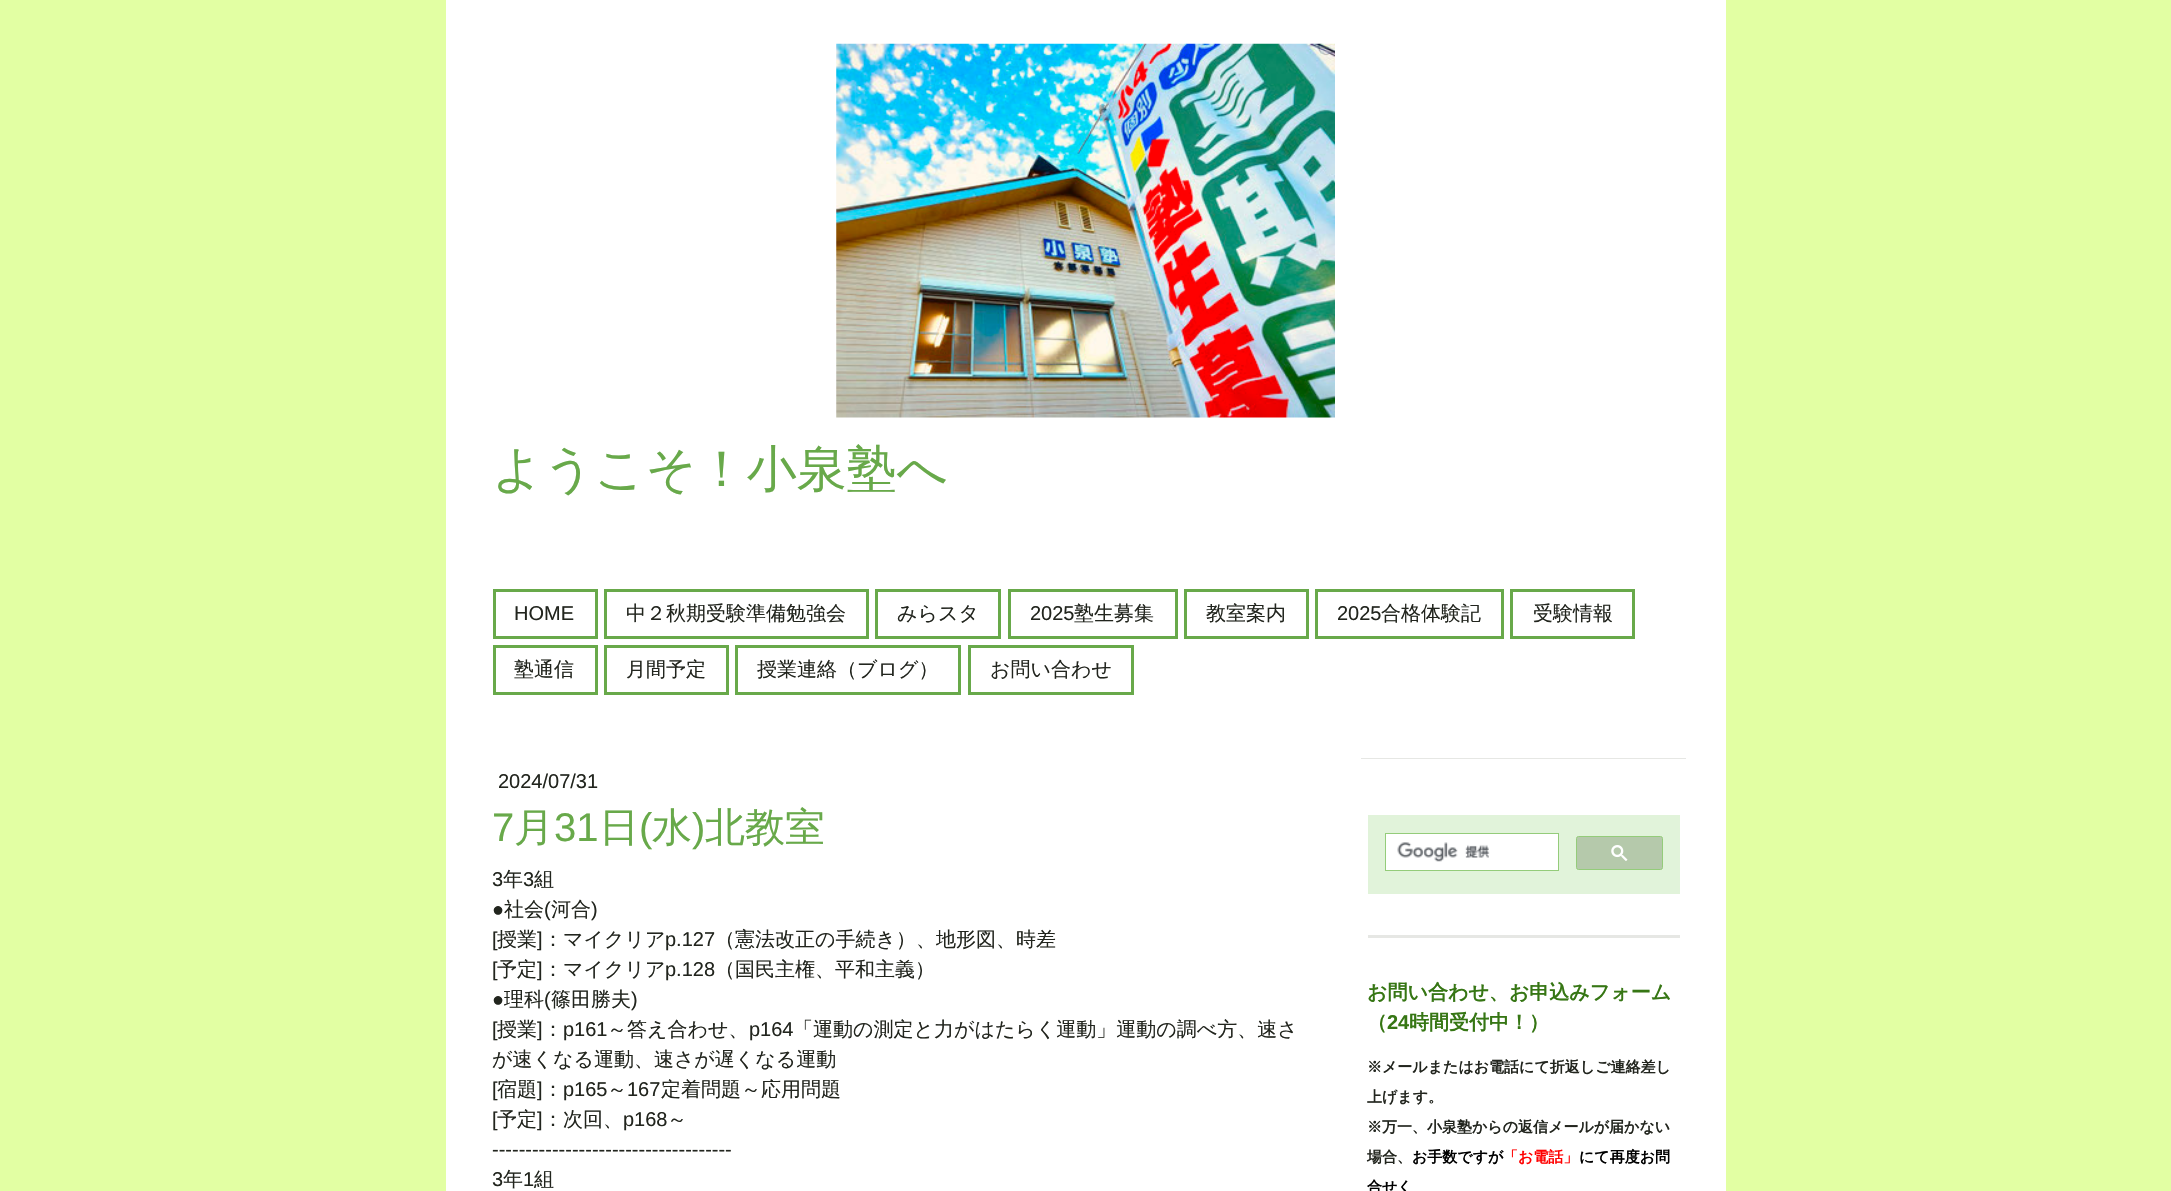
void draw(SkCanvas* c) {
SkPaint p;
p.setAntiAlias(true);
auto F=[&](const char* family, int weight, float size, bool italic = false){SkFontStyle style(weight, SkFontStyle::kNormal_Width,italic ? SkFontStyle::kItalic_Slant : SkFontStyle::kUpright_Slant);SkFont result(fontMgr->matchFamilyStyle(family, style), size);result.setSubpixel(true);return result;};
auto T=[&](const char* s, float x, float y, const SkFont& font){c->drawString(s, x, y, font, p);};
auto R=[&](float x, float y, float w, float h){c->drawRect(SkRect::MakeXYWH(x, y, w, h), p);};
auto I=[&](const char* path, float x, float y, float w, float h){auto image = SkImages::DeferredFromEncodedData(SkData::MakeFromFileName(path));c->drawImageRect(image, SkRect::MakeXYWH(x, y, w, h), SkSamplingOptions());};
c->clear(0xffe2ffa3);
p.setColor(0xffffffff);
R(446,0,1280,1191);
I("1.png",836,43,499,375);
auto f1 = F("WenQuanYi Zen Hei",500,50);
p.setColor(0xff68a94a);
T("ようこそ！小泉塾へ",492,486,f1);
p.setStroke(true);
p.setStrokeWidth(3);
c->drawRect(SkRect::MakeXYWH(494.5,590.5,102,47),p);
auto f2 = F("Liberation Sans",400,20);
p.setStroke(false);
p.setColor(0xff22251e);
T("HOME",514,620,f2);
p.setStroke(true);
p.setColor(0xff68a94a);
c->drawRect(SkRect::MakeXYWH(605.5,590.5,262,47),p);
auto f3 = F("WenQuanYi Zen Hei",500,20);
p.setStroke(false);
p.setColor(0xff22251e);
T("中２秋期受験準備勉強会",626,620,f3);
p.setStroke(true);
p.setColor(0xff68a94a);
c->drawRect(SkRect::MakeXYWH(876.5,590.5,123,47),p);
p.setStroke(false);
p.setColor(0xff22251e);
T("みらスタ",897,620,f3);
p.setStroke(true);
p.setColor(0xff68a94a);
c->drawRect(SkRect::MakeXYWH(1009.5,590.5,167,47),p);
p.setStroke(false);
p.setColor(0xff22251e);
T("2025",1030,620,f2);
T("塾生募集",1074,620,f3);
p.setStroke(true);
p.setColor(0xff68a94a);
c->drawRect(SkRect::MakeXYWH(1185.5,590.5,122,47),p);
p.setStroke(false);
p.setColor(0xff22251e);
T("教室案内",1206,620,f3);
p.setStroke(true);
p.setColor(0xff68a94a);
c->drawRect(SkRect::MakeXYWH(1316.5,590.5,186,47),p);
p.setStroke(false);
p.setColor(0xff22251e);
T("2025",1337,620,f2);
T("合格体験記",1381,620,f3);
p.setStroke(true);
p.setColor(0xff68a94a);
c->drawRect(SkRect::MakeXYWH(1511.5,590.5,122,47),p);
p.setStroke(false);
p.setColor(0xff22251e);
T("受験情報",1533,620,f3);
p.setStroke(true);
p.setColor(0xff68a94a);
c->drawRect(SkRect::MakeXYWH(494.5,646.5,102,47),p);
p.setStroke(false);
p.setColor(0xff22251e);
T("塾通信",514,676,f3);
p.setStroke(true);
p.setColor(0xff68a94a);
c->drawRect(SkRect::MakeXYWH(605.5,646.5,122,47),p);
p.setStroke(false);
p.setColor(0xff22251e);
T("月間予定",626,676,f3);
p.setStroke(true);
p.setColor(0xff68a94a);
c->drawRect(SkRect::MakeXYWH(736.5,646.5,223,47),p);
p.setStroke(false);
p.setColor(0xff22251e);
T("授業連絡（ブログ）",757,676,f3);
p.setStroke(true);
p.setColor(0xff68a94a);
c->drawRect(SkRect::MakeXYWH(969.5,646.5,163,47),p);
p.setStroke(false);
p.setColor(0xff22251e);
T("お問い合わせ",990,676,f3);
T("2024/07/31",498,788,f2);
auto f4 = F("Liberation Sans",400,40);
p.setColor(0xff68a94a);
T("7",492,841,f4);
auto f5 = F("WenQuanYi Zen Hei",500,40);
T("月",514,841,f5);
T("31",554,841,f4);
T("日",599,841,f5);
T("(",639,841,f4);
T("水",652,841,f5);
T(")",692,841,f4);
T("北教室",705,841,f5);
p.setColor(0xff22251e);
T("3",492,886,f2);
T("年",503,886,f3);
T("3",523,886,f2);
T("組",534,886,f3);
T("●",492,916,f2);
T("社会",504,916,f3);
T("(",544,916,f2);
T("河合",551,916,f3);
T(")",591,916,f2);
T("[",492,946,f2);
T("授業",497,946,f3);
T("]",537,946,f2);
T("：マイクリア",543,946,f3);
T("p.127",665,946,f2);
T("（憲法改正の手続き）、地形図、時差",715,946,f3);
T("[",492,976,f2);
T("予定",497,976,f3);
T("]",537,976,f2);
T("：マイクリア",543,976,f3);
T("p.128",665,976,f2);
T("（国民主権、平和主義）",715,976,f3);
T("●",492,1006,f2);
T("理科",504,1006,f3);
T("(",544,1006,f2);
T("篠田勝夫",551,1006,f3);
T(")",631,1006,f2);
T("[",492,1036,f2);
T("授業",497,1036,f3);
T("]",537,1036,f2);
T("：",543,1036,f3);
T("p161",563,1036,f2);
T("～答え合わせ、",607,1036,f3);
T("p164",749,1036,f2);
T("「運動の測定と力がはたらく運動」運動の調べ方、速さ",793,1036,f3);
T("が速くなる運動、速さが遅くなる運動",492,1066,f3);
T("[",492,1096,f2);
T("宿題",497,1096,f3);
T("]",537,1096,f2);
T("：",543,1096,f3);
T("p165",563,1096,f2);
T("～",607,1096,f3);
T("167",627,1096,f2);
T("定着問題～応用問題",661,1096,f3);
T("[",492,1126,f2);
T("予定",497,1126,f3);
T("]",537,1126,f2);
T("：次回、",543,1126,f3);
T("p168",623,1126,f2);
T("～",667,1126,f3);
T("------------------------------------",492,1156,f2);
T("3",492,1186,f2);
T("年",503,1186,f3);
T("1",523,1186,f2);
T("組",534,1186,f3);
p.setColor(0xffe6e7e4);
R(1361,758,325,1);
p.setColor(0xffe1f3da);
R(1368,815,312,79);
p.setColor(0xffffffff);
c->drawRect(SkRect::MakeXYWH(1385.5,833.5,173,37),p);
p.setStroke(true);
p.setStrokeWidth(1);
p.setColor(0xff94cc7a);
c->drawRect(SkRect::MakeXYWH(1385.5,833.5,173,37),p);
I("2.png",1397,842,93,20);
p.setStroke(false);
p.setColor(0xffb5c9ab);
c->drawRoundRect(SkRect::MakeXYWH(1576.5,836.5,86,33),2,2,p);
p.setStroke(true);
p.setColor(0xff94cc7a);
c->drawRoundRect(SkRect::MakeXYWH(1576.5,836.5,86,33),2,2,p);
I("3.png",1611,845,17,16);
p.setStroke(false);
p.setColor(0xffe6e7e4);
R(1368,935,312,3);
auto f6 = F("WenQuanYi Zen Hei",700,20);
p.setColor(0xff367614);
T("お問い合わせ、お申込みフォーム",1367,999,f6);
T("（",1367,1029,f6);
auto f7 = F("Liberation Sans",700,20);
T("24",1387,1029,f7);
T("時間受付中！）",1409,1029,f6);
auto f8 = F("WenQuanYi Zen Hei",700,15);
p.setColor(0xff22251e);
T("※メールまたはお電話にて折返しご連絡差し",1367,1072,f8);
T("上げます。",1367,1102,f8);
T("※万一、小泉塾からの返信メールが届かない",1367,1132,f8);
T("場合、",1367,1162,f8);
p.setColor(0xff000000);
T("お手数ですが",1412,1162,f8);
p.setColor(0xffff0000);
T("「お電話」",1503,1162,f8);
p.setColor(0xff000000);
T("にて再度お問",1579,1162,f8);
T("合せく",1367,1192,f8);
}
